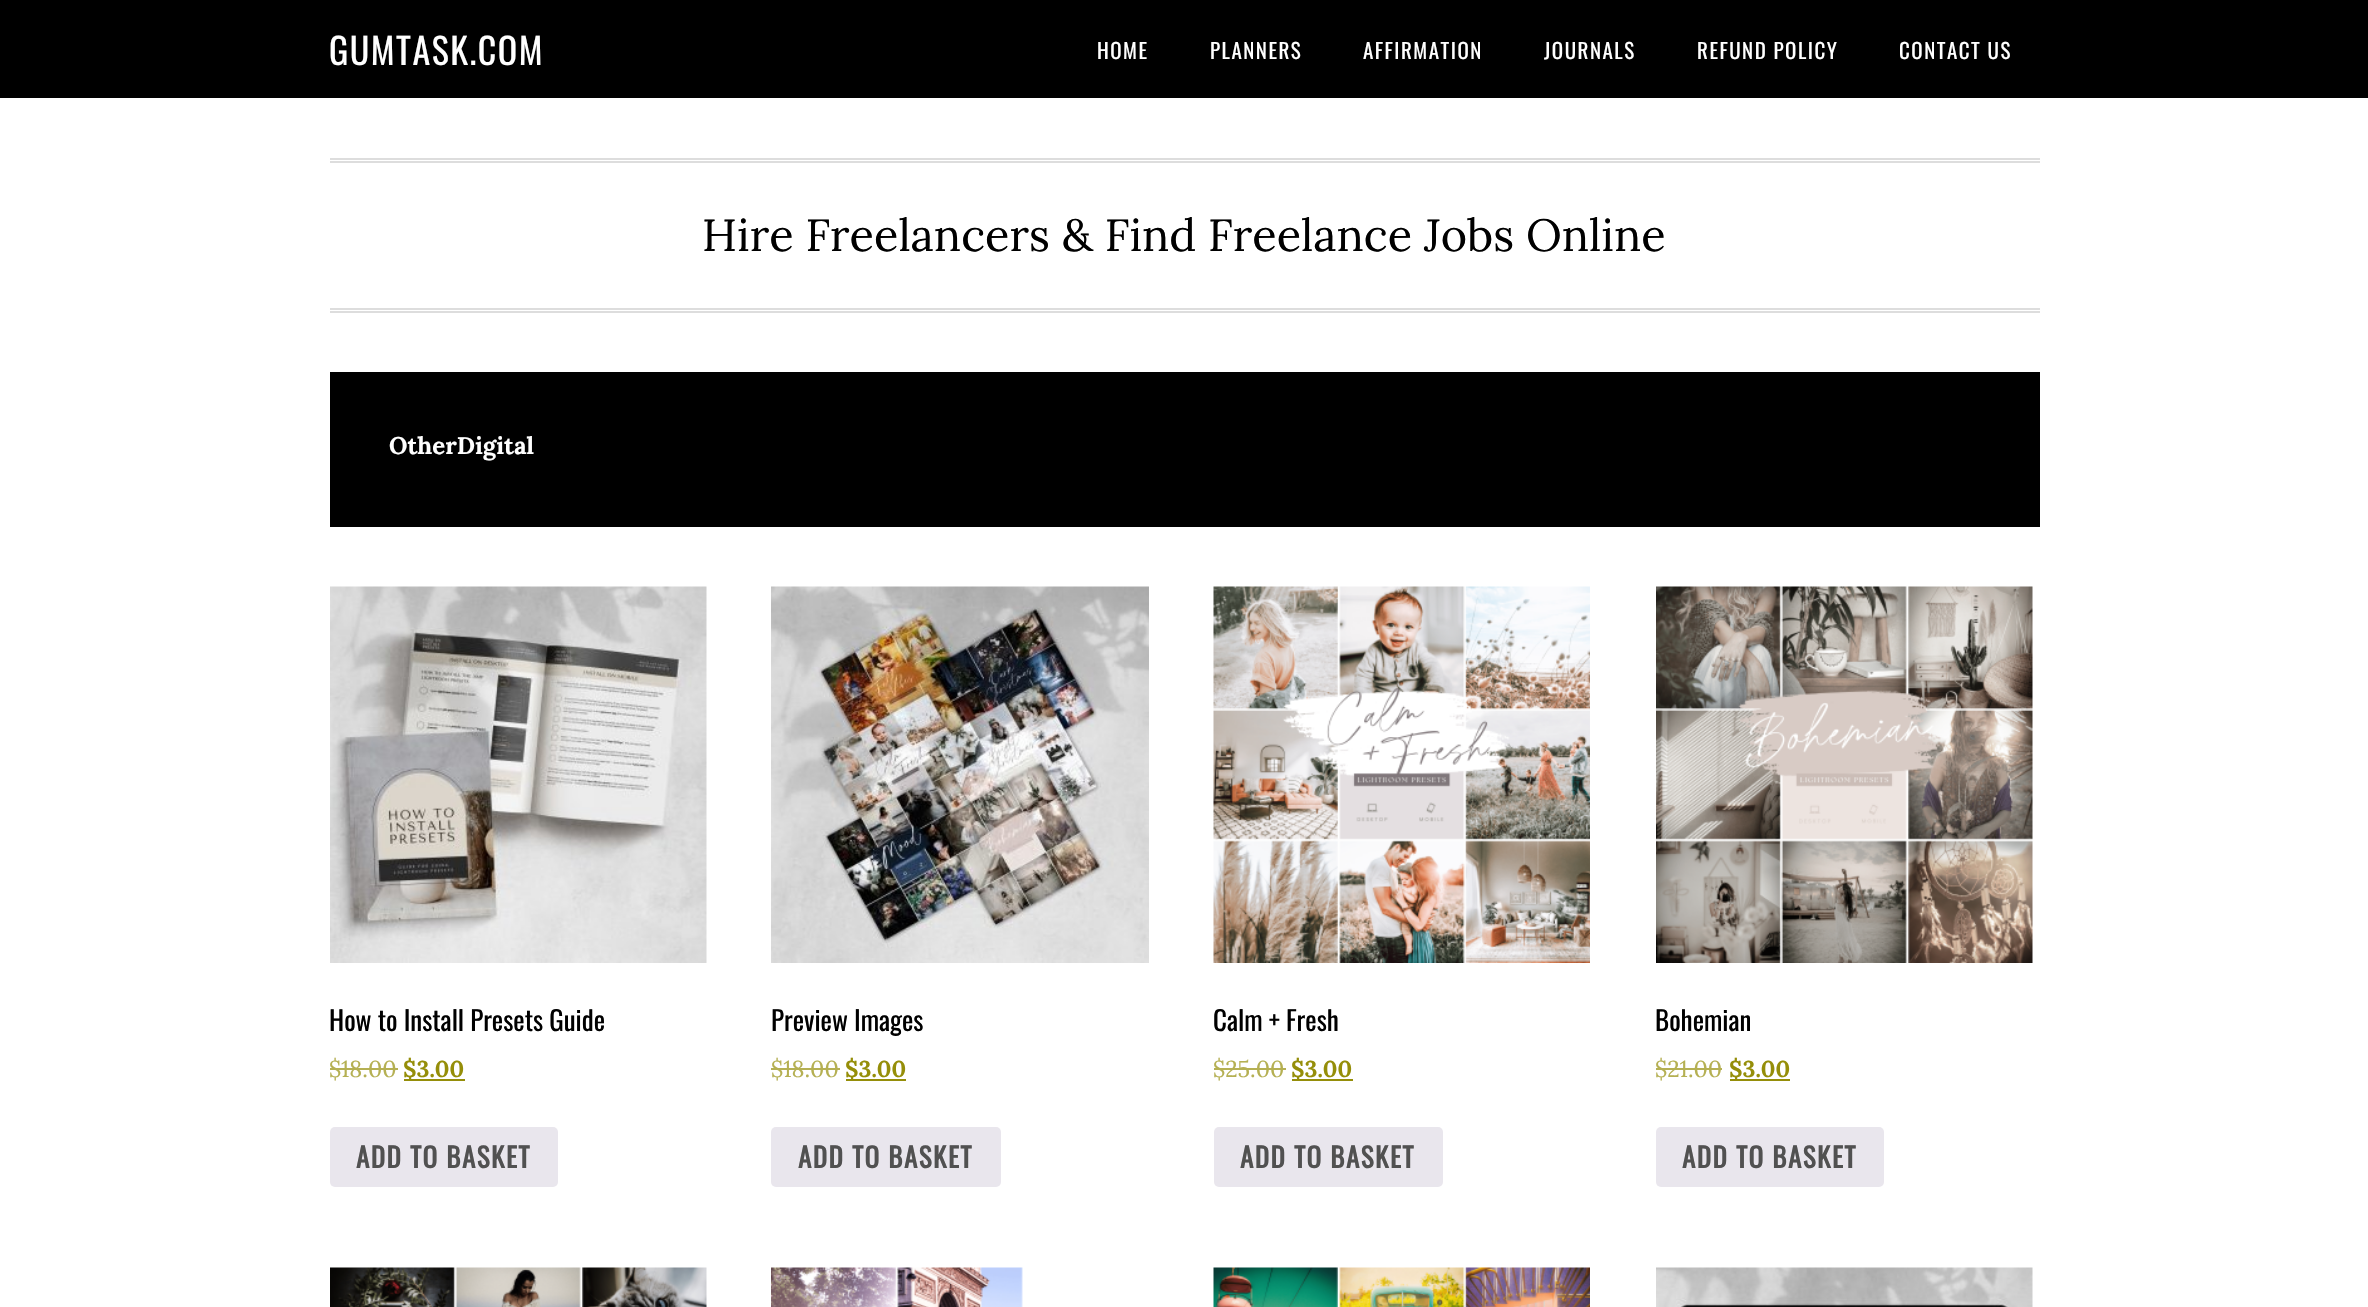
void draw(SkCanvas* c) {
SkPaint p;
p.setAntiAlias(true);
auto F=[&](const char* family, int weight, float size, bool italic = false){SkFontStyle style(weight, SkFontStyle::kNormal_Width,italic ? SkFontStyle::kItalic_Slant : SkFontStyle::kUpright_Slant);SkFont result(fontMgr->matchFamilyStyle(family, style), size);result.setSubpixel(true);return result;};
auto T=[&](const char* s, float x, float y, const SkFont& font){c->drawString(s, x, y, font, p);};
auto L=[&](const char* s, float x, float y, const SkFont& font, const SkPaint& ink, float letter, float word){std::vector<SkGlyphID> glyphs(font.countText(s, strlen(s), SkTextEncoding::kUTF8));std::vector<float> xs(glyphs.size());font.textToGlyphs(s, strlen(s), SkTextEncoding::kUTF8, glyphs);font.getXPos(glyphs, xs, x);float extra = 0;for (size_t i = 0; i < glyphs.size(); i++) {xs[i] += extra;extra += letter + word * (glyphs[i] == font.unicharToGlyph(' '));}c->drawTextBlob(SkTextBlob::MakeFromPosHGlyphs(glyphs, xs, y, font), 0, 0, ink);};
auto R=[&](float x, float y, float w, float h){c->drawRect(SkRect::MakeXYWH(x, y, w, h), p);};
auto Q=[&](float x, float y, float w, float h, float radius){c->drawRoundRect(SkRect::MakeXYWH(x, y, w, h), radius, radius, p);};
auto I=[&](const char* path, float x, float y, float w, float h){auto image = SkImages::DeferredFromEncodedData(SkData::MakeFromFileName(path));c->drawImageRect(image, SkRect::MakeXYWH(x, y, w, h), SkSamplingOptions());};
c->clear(0xffffffff);
p.setColor(0xff000000);
R(0,0,2368,98);
auto f1 = F("Oswald",400,36);
p.setColor(0xffffffff);
L("GUMTASK.COM",329,65,f1,p,1.5,0);
auto f2 = F("Oswald",400,21);
L("HOME",1097,59,f2,p,1.5,0);
L("PLANNERS",1210,59,f2,p,1.5,0);
L("AFFIRMATION",1363,59,f2,p,1.5,0);
L("JOURNALS",1544,59,f2,p,1.5,0);
L("REFUND POLICY",1697,59,f2,p,1.5,0);
L("CONTACT US",1899,59,f2,p,1.5,0);
p.setColor(0xffdddddd);
R(330,158,1710,2);
R(330,161,1710,2);
R(330,308,1710,2);
R(330,311,1710,2);
auto f3 = F("Lora",400,45);
p.setColor(0xff000000);
T("Hire Freelancers & Find Freelance Jobs Online",702,251,f3);
R(330,372,1710,155);
auto f4 = F("Lora",700,24);
p.setColor(0xffffffff);
T("OtherDigital",389,454,f4);
I("1.png",330,586,377,377);
auto f5 = F("Oswald",400,27);
p.setColor(0xff000000);
T("How to Install Presets Guide",329,1031,f5);
auto f6 = F("Lora",400,23);
p.setColor(0xffb5b053);
T("$",329,1077,f6);
R(330,1068,12,2);
T("18.00",341,1077,f6);
R(342,1068,56,2);
p.setColor(0xff958e09);
R(404,1079,61,2);
auto f7 = F("Lora",700,23);
T("$3.00",403,1077,f7);
p.setColor(0xffe9e6ed);
Q(330,1127,228,60,5);
auto f8 = F("Oswald",700,27);
p.setColor(0xff515151);
L("ADD TO BASKET",356,1168,f8,p,1.5,0);
I("2.png",771,586,378,377);
p.setColor(0xff000000);
T("Preview Images",771,1031,f5);
p.setColor(0xffb5b053);
T("$18.00",771,1077,f6);
R(771,1068,69,2);
p.setColor(0xff958e09);
R(846,1079,60,2);
T("$3.00",845,1077,f7);
p.setColor(0xffe9e6ed);
Q(771,1127,230,60,5);
p.setColor(0xff515151);
L("ADD TO BASKET",798,1168,f8,p,1.5,0);
I("3.png",1213,586,377,377);
p.setColor(0xff000000);
T("Calm + Fresh",1213,1031,f5);
p.setColor(0xffb5b053);
T("$25.00",1213,1077,f6);
R(1214,1068,72,2);
p.setColor(0xff958e09);
R(1292,1079,61,2);
T("$3.00",1291,1077,f7);
p.setColor(0xffe9e6ed);
Q(1214,1127,229,60,5);
p.setColor(0xff515151);
L("ADD TO BASKET",1240,1168,f8,p,1.5,0);
I("4.png",1656,586,377,377);
p.setColor(0xff000000);
T("Bohemian",1655,1031,f5);
p.setColor(0xffb5b053);
T("$21.00",1655,1077,f6);
R(1656,1068,66,2);
p.setColor(0xff958e09);
R(1730,1079,60,2);
T("$3.00",1729,1077,f7);
p.setColor(0xffe9e6ed);
Q(1656,1127,228,60,5);
p.setColor(0xff515151);
L("ADD TO BASKET",1682,1168,f8,p,1.5,0);
I("5.png",330,1267,377,40);
I("6.png",771,1267,252,40);
I("7.png",1213,1267,377,40);
I("8.png",1656,1267,377,40);
}
